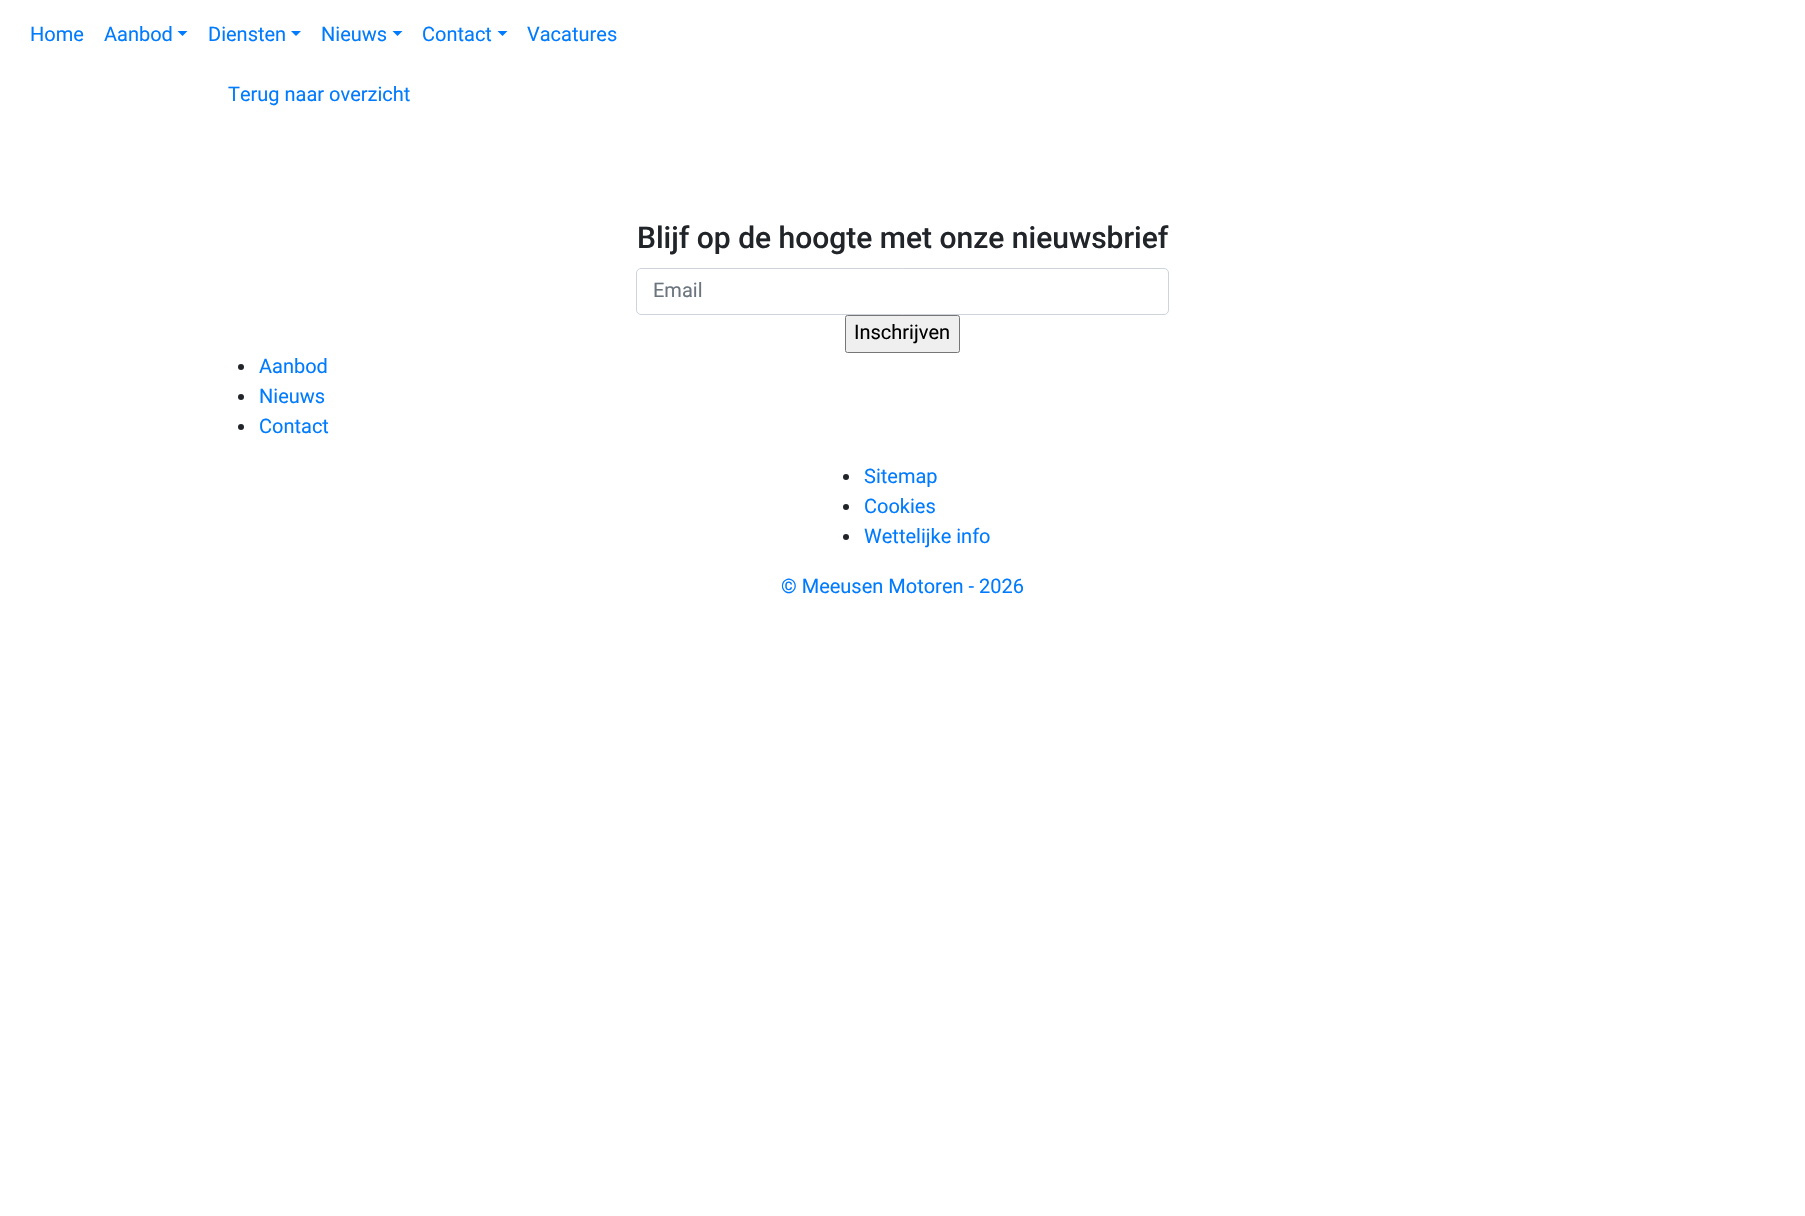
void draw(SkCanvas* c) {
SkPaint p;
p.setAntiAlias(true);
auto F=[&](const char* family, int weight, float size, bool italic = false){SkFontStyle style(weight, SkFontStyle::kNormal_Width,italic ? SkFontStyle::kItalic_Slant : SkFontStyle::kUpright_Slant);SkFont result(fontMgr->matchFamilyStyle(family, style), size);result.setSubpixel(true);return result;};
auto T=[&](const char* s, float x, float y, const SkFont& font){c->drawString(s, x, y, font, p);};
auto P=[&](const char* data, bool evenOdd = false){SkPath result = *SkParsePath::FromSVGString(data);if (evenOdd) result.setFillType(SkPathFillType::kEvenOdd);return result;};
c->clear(0xffffffff);
auto f1 = F("Roboto",400,20);
p.setColor(0xff007bff);
T("Home",30,41,f1);
T("Aanbod",104,41,f1);
c->drawPath(P("M177.5 31h10l-5 5z"),p);
T("Diensten",208,41,f1);
c->drawPath(P("M291 31h10l-5 5z"),p);
T("Nieuws",321,41,f1);
c->drawPath(P("M392.5 31h10l-5 5z"),p);
T("Contact",422,41,f1);
c->drawPath(P("M497.5 31h10l-5 5z"),p);
T("Vacatures",527,41,f1);
T("Terug naar overzicht",228,101,f1);
auto f2 = F("Roboto",500,30);
p.setColor(0xff212529);
T("Blijf op de hoogte met onze nieuwsbrief",637,248,f2);
p.setStroke(true);
p.setStrokeWidth(1);
p.setColor(0xffced4da);
c->drawRoundRect(SkRect::MakeXYWH(636.5,268.5,532,46),4.5,4.5,p);
p.setStroke(false);
p.setColor(0xff6c757d);
T("Email",653,297,f1);
p.setColor(0xffefefef);
c->drawRoundRect(SkRect::MakeXYWH(845.5,315.5,114,37),2,2,p);
p.setStroke(true);
p.setColor(0xff767676);
c->drawRoundRect(SkRect::MakeXYWH(845.5,315.5,114,37),2,2,p);
p.setStroke(false);
p.setColor(0xff000000);
T("Inschrijven",854,339,f1);
p.setColor(0xff212529);
c->drawCircle(241,367,3,p);
p.setColor(0xff007bff);
T("Aanbod",259,373,f1);
p.setColor(0xff212529);
c->drawCircle(241,397,3,p);
p.setColor(0xff007bff);
T("Nieuws",259,403,f1);
p.setColor(0xff212529);
c->drawCircle(241,427,3,p);
p.setColor(0xff007bff);
T("Contact",259,433,f1);
p.setColor(0xff212529);
c->drawCircle(846,477,3,p);
p.setColor(0xff007bff);
T("Sitemap",864,483,f1);
p.setColor(0xff212529);
c->drawCircle(846,507,3,p);
p.setColor(0xff007bff);
T("Cookies",864,513,f1);
p.setColor(0xff212529);
c->drawCircle(846,537,3,p);
p.setColor(0xff007bff);
T("Wettelijke info",864,543,f1);
T("© Meeusen Motoren - 2026",781,593,f1);
}
